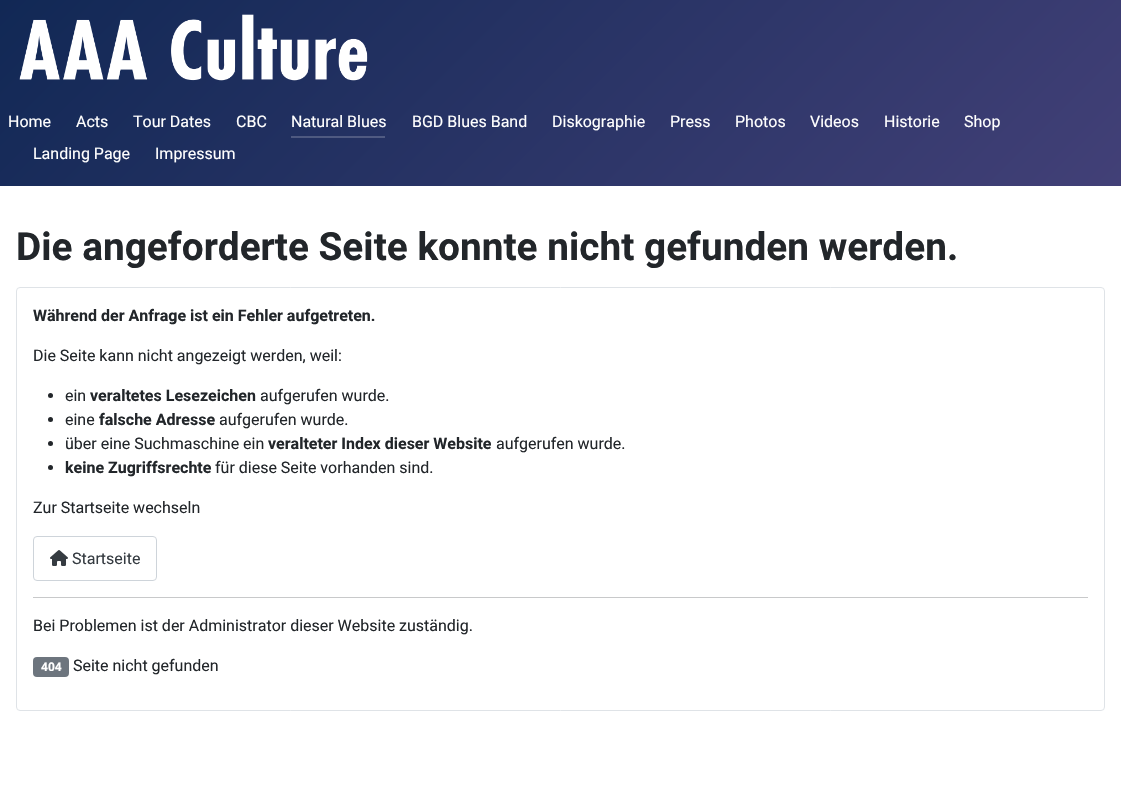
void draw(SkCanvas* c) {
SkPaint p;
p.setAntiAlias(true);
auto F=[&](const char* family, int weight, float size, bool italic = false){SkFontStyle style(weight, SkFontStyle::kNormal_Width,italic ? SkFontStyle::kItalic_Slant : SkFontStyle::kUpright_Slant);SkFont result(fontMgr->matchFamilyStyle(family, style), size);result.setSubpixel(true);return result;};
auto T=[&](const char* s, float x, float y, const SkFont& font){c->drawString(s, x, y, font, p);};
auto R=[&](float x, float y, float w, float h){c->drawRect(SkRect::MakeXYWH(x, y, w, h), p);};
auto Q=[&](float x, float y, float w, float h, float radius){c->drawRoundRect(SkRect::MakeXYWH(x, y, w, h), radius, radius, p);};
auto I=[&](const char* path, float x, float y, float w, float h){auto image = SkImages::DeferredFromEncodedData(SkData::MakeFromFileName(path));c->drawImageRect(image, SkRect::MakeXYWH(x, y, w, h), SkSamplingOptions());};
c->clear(0xffffffff);
{
const SkColor colors[] = {0xff112855,0xff424077};
const float stops[] = {0,1};
const SkPoint ends[] = {{234,-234}, {887,420}};
p.setShader(SkGradientShader::MakeLinear(ends, colors, stops, 2, SkTileMode::kClamp));
p.setAlpha(255);
}
R(0,0,1121,186);
{
const SkColor colors[] = {0xff415377,0xff686692};
const float stops[] = {0,1};
const SkPoint ends[] = {{234,-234}, {887,420}};
p.setShader(SkGradientShader::MakeLinear(ends, colors, stops, 2, SkTileMode::kClamp));
p.setAlpha(255);
}
R(291,136,94,2);
I("1.png",19,14,349,67);
auto f1 = F("Roboto",400,16);
p.setShader(nullptr);
p.setColor(0xffffffff);
T("Home",8,127,f1);
T("Acts",76,127,f1);
T("Tour Dates",133,127,f1);
T("CBC",236,127,f1);
T("Natural Blues",291,127,f1);
T("BGD Blues Band",412,127,f1);
T("Diskographie",552,127,f1);
T("Press",670,127,f1);
T("Photos",735,127,f1);
T("Videos",810,127,f1);
T("Historie",884,127,f1);
T("Shop",964,127,f1);
T("Landing Page",33,159,f1);
T("Impressum",155,159,f1);
auto f2 = F("Roboto",700,38.8);
p.setColor(0xff22262a);
T("Die angeforderte Seite konnte nicht gefunden werden.",16,260,f2);
p.setStroke(true);
p.setStrokeWidth(1);
p.setColor(0xffdfe3e7);
c->drawRoundRect(SkRect::MakeXYWH(16.5,287.5,1088,423),3.5,3.5,p);
auto f3 = F("Roboto",700,16);
p.setStroke(false);
p.setColor(0xff22262a);
T("Während der Anfrage ist ein Fehler aufgetreten.",33,321,f3);
T("Die Seite kann nicht angezeigt werden, weil:",33,361,f1);
c->drawCircle(50.5,395.5,2.5,p);
T("ein",65,401,f1);
T("veraltetes Lesezeichen",90,401,f3);
T("aufgerufen wurde.",260,401,f1);
c->drawCircle(50.5,419.5,2.5,p);
T("eine",65,425,f1);
T("falsche Adresse",99,425,f3);
T("aufgerufen wurde.",219,425,f1);
c->drawCircle(50.5,443.5,2.5,p);
T("über eine Suchmaschine ein",65,449,f1);
T("veralteter Index dieser Website",268,449,f3);
T("aufgerufen wurde.",496,449,f1);
c->drawCircle(50.5,467.5,2.5,p);
T("keine Zugriffsrechte",65,473,f3);
T("für diese Seite vorhanden sind.",215,473,f1);
T("Zur Startseite wechseln",33,513,f1);
p.setStroke(true);
p.setColor(0xffced4da);
c->drawRoundRect(SkRect::MakeXYWH(33.5,536.5,123,44),3.5,3.5,p);
I("2.png",50,550,18,16);
p.setStroke(false);
p.setColor(0xff353b41);
T("Startseite",72,564,f1);
p.setColor(0xffc8c9ca);
R(33,597,1055,1);
p.setColor(0xff22262a);
T("Bei Problemen ist der Administrator dieser Website zuständig.",33,631,f1);
p.setColor(0xff6d757e);
Q(33,657,36,20,4);
auto f4 = F("Roboto",700,12);
p.setColor(0xffffffff);
T("404",41,671,f4);
p.setColor(0xff22262a);
T("Seite nicht gefunden",73,671,f1);
}
